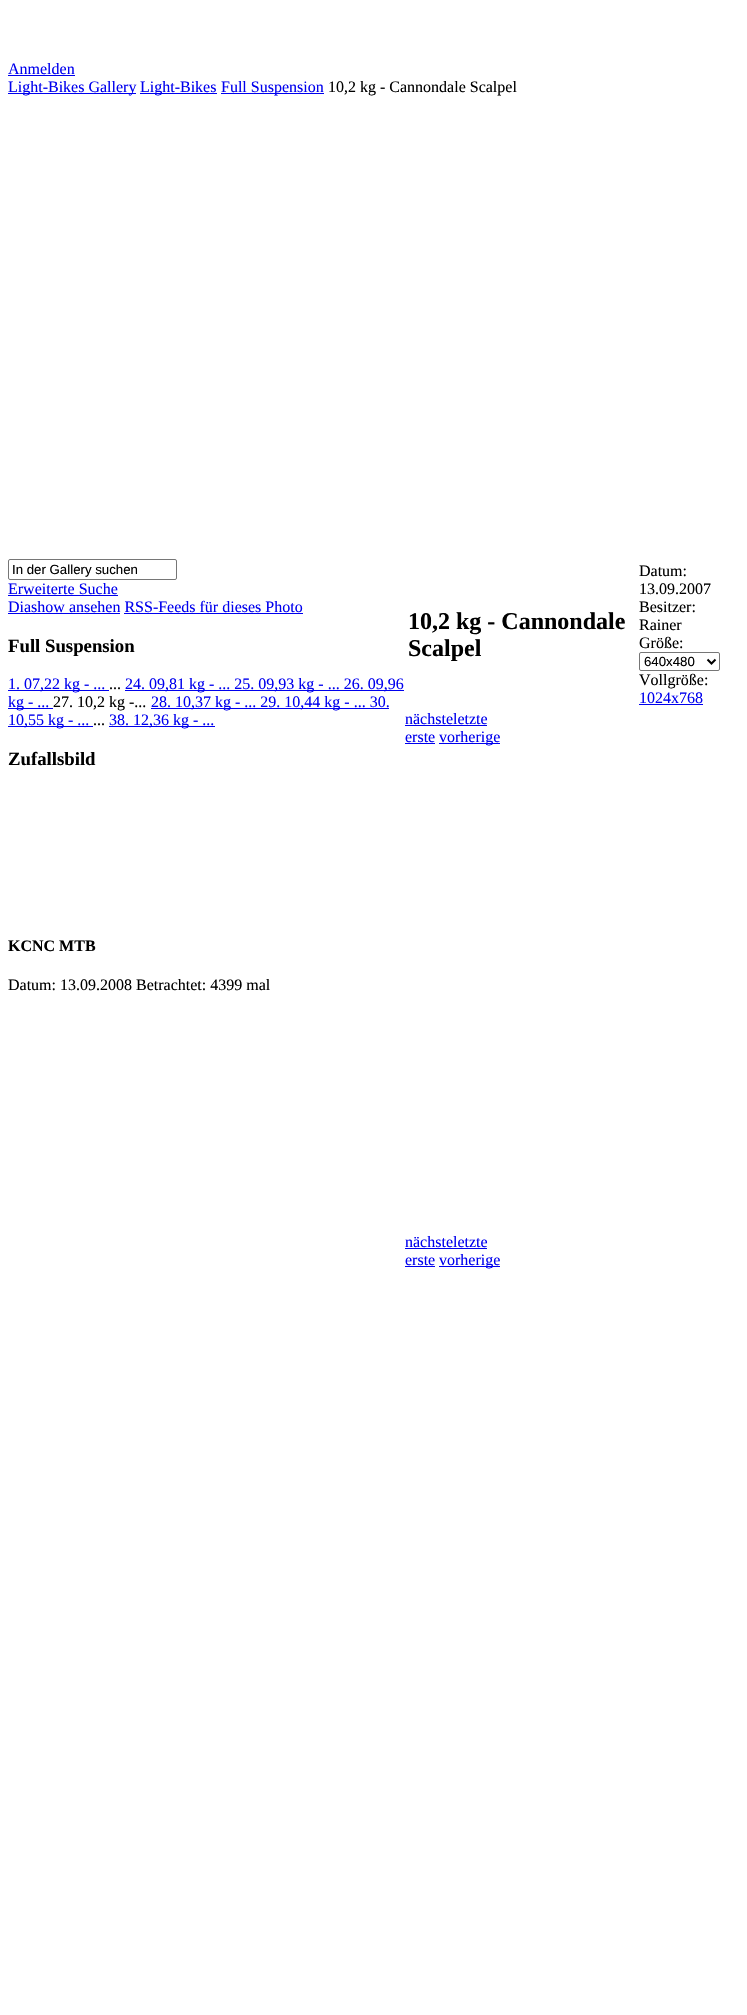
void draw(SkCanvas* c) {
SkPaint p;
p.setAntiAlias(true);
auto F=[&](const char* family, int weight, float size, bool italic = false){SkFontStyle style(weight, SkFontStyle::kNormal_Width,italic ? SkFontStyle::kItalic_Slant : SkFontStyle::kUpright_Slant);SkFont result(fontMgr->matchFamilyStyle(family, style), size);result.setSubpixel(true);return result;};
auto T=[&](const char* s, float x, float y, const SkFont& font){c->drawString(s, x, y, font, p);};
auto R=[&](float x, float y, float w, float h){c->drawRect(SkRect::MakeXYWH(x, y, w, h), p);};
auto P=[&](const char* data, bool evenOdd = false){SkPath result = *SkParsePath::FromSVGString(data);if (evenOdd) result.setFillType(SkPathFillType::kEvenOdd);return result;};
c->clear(0xffffffff);
auto f1 = F("Liberation Serif",400,16);
p.setColor(0xff0000ee);
T("Anmelden",8,74,f1);
R(8,75,67,1);
R(8,93,128,1);
T("Light-Bikes Gallery",8,92,f1);
R(140,93,77,1);
T("Light-Bikes",140,92,f1);
R(221,93,103,1);
T("Full Suspension",221,92,f1);
p.setColor(0xff000000);
T("10,2 kg - Cannondale Scalpel",328,92,f1);
p.setStroke(true);
p.setStrokeWidth(1);
p.setColor(0xff767676);
c->drawRoundRect(SkRect::MakeXYWH(8.5,559.5,168,20),1.5,1.5,p);
auto f2 = F("Liberation Sans",400,13.25);
p.setStroke(false);
p.setColor(0xff000000);
T("In der Gallery suchen",12,574,f2);
p.setColor(0xff0000ee);
T("Erweiterte Suche",8,594,f1);
R(8,595,110,1);
T("Diashow ansehen RSS-Feeds für dieses Photo",8,612,f1);
R(8,613,112,1);
R(124,613,179,1);
auto f3 = F("Liberation Serif",700,18.75);
p.setColor(0xff000000);
T("Full Suspension",8,652,f3);
p.setColor(0xff0000ee);
R(8,690,101,1);
T("1. 07,22 kg - ...",8,689,f1);
p.setColor(0xff000000);
T("...",109,689,f1);
p.setColor(0xff0000ee);
R(125,690,279,1);
T("24. 09,81 kg - ... 25. 09,93 kg - ... 26. 09,96",125,689,f1);
R(8,708,45,1);
T("kg - ...",8,707,f1);
p.setColor(0xff000000);
T("27. 10,2 kg -...",53,707,f1);
p.setColor(0xff0000ee);
R(151,708,238,1);
T("28. 10,37 kg - ... 29. 10,44 kg - ... 30.",151,707,f1);
R(8,726,85,1);
T("10,55 kg - ...",8,725,f1);
p.setColor(0xff000000);
T("...",93,725,f1);
p.setColor(0xff0000ee);
R(109,726,106,1);
T("38. 12,36 kg - ...",109,725,f1);
p.setColor(0xff000000);
T("Zufallsbild",8,765,f3);
auto f4 = F("Liberation Serif",700,16);
T("KCNC MTB",8,951,f4);
T("Datum: 13.09.2008 Betrachtet: 4399 mal",8,990,f1);
auto f5 = F("Liberation Serif",700,24);
T("10,2 kg - Cannondale",408,629,f5);
T("Scalpel",408,656,f5);
T("Datum:",639,576,f1);
T("13.09.2007",639,594,f1);
T("Besitzer:",639,612,f1);
T("Rainer",639,630,f1);
T("Größe:",639,648,f1);
p.setStroke(true);
p.setColor(0xff767676);
c->drawRoundRect(SkRect::MakeXYWH(639.5,652.5,80,18),1.5,1.5,p);
p.setStrokeWidth(2);
p.setColor(0xff000000);
c->drawPath(P("M707.5 659.5l4 4l4-4"),p);
p.setStroke(false);
T("640x480",644,666,f2);
T("Vollgröße:",639,685,f1);
p.setColor(0xff0000ee);
T("1024x768",639,703,f1);
R(639,704,64,1);
T("nächsteletzte",405,724,f1);
R(405,725,82,1);
T("erste",405,742,f1);
R(405,743,30,1);
R(439,743,61,1);
T("vorherige",439,742,f1);
T("nächsteletzte",405,1247,f1);
R(405,1248,82,1);
T("erste",405,1265,f1);
R(405,1266,30,1);
R(439,1266,61,1);
T("vorherige",439,1265,f1);
}
